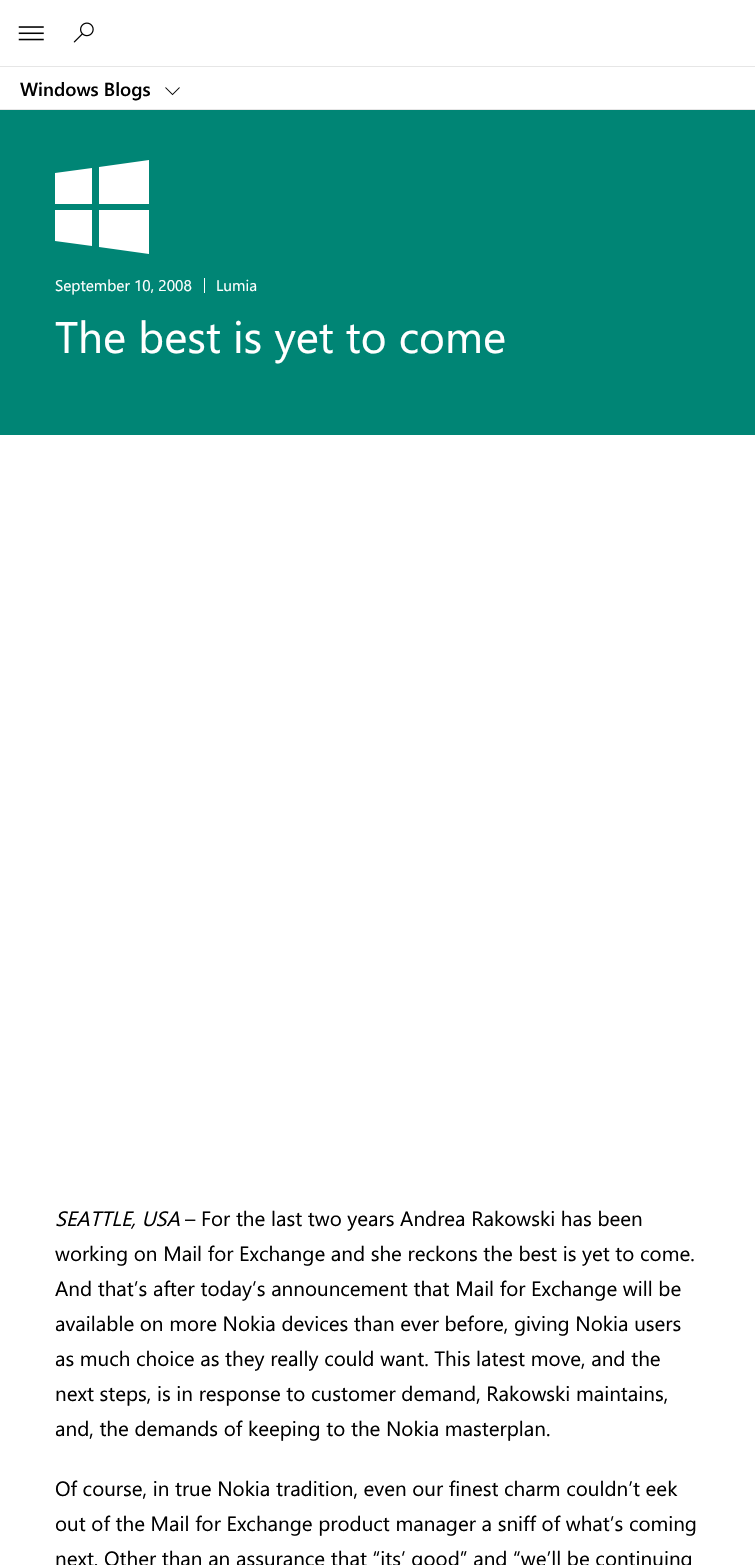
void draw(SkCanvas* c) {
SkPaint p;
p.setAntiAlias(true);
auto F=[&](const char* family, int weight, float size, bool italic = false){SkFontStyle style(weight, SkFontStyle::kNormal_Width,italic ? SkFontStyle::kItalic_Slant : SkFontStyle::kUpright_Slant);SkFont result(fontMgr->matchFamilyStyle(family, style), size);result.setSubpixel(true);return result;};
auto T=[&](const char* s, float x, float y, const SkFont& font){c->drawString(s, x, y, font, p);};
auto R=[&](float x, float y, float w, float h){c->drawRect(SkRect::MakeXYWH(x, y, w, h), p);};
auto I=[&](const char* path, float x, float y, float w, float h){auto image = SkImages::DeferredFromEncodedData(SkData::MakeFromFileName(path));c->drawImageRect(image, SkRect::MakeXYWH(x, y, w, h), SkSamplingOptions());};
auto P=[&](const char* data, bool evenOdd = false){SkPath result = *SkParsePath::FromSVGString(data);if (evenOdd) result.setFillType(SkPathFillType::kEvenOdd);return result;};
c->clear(0xffffffff);
p.setColor(0xffe6e6e6);
R(0,66,755,1);
I("1.png",18,26,26,15);
I("2.png",73,22,21,21);
R(0,109,755,1);
auto f1 = F("Segoe UI",600,18.75);
p.setColor(0xff000000);
T("Windows Blogs",20,96,f1);
I("3.png",165,87,15,9);
p.setColor(0xff008575);
R(0,110,755,325);
p.setColor(0xffffffff);
c->drawPath(P("M55 173l37-5v36h-37zm94-13v44h-50v-37zm-50 50h50v44l-50-7zm-44 0h37v36l-37-5z"),p);
auto f2 = F("Segoe UI",400,15.5);
T("September 10, 2008",55,291,f2);
R(204,278,1,15);
T("Lumia",216,291,f2);
auto f3 = F("Segoe UI",400,44.1);
T("The best is yet to come",55,353,f3);
auto f4 = F("Segoe UI",400,20.6,true);
p.setColor(0xff000000);
T("SEATTLE, USA",55,1226,f4);
auto f5 = F("Segoe UI",400,20.6);
T("– For the last two years Andrea Rakowski has been",185,1226,f5);
T("working on Mail for Exchange and she reckons the best is yet to come.",55,1261,f5);
T("And that’s after today’s announcement that Mail for Exchange will be",55,1296,f5);
T("available on more Nokia devices than ever before, giving Nokia users",55,1331,f5);
T("as much choice as they really could want. This latest move, and the",55,1366,f5);
T("next steps, is in response to customer demand, Rakowski maintains,",55,1401,f5);
T("and, the demands of keeping to the Nokia masterplan.",55,1436,f5);
T("Of course, in true Nokia tradition, even our finest charm couldn’t eek",55,1496,f5);
T("out of the Mail for Exchange product manager a sniff of what’s coming",55,1531,f5);
T("next. Other than an assurance that “its’ good” and “we’ll be continuing",55,1566,f5);
}
